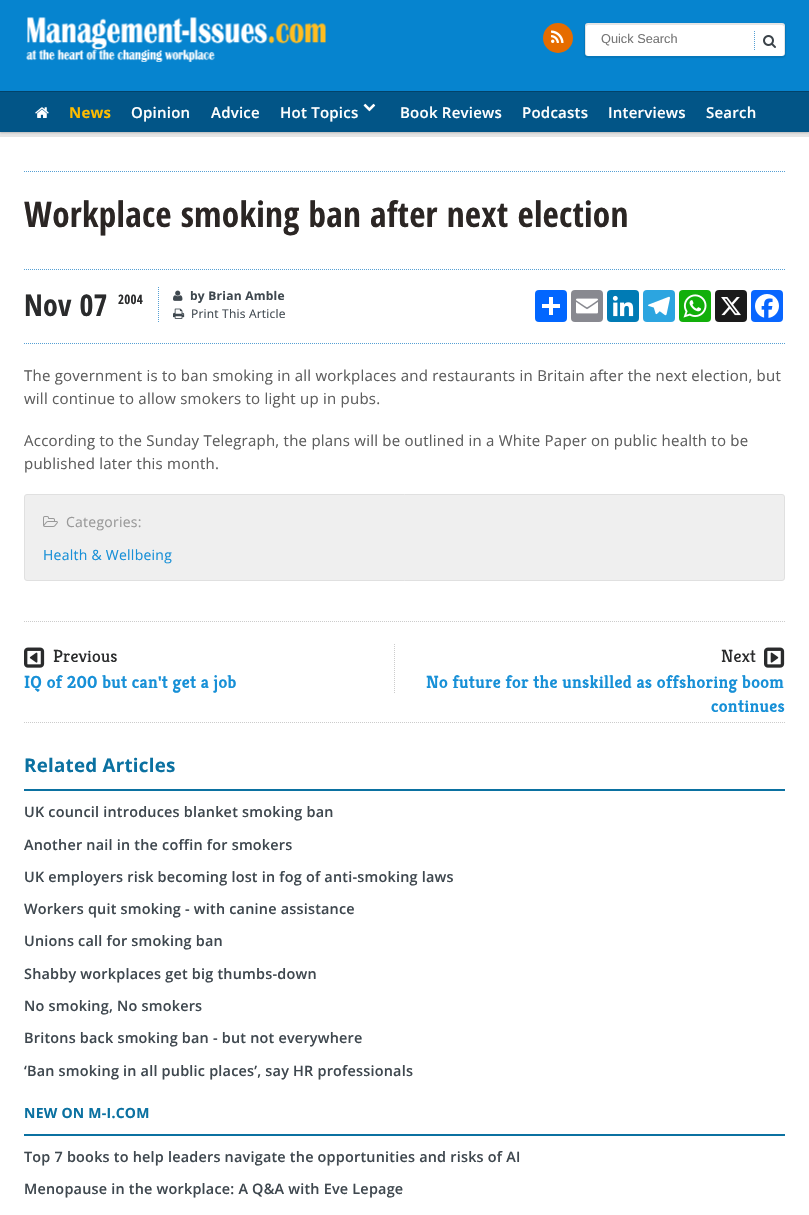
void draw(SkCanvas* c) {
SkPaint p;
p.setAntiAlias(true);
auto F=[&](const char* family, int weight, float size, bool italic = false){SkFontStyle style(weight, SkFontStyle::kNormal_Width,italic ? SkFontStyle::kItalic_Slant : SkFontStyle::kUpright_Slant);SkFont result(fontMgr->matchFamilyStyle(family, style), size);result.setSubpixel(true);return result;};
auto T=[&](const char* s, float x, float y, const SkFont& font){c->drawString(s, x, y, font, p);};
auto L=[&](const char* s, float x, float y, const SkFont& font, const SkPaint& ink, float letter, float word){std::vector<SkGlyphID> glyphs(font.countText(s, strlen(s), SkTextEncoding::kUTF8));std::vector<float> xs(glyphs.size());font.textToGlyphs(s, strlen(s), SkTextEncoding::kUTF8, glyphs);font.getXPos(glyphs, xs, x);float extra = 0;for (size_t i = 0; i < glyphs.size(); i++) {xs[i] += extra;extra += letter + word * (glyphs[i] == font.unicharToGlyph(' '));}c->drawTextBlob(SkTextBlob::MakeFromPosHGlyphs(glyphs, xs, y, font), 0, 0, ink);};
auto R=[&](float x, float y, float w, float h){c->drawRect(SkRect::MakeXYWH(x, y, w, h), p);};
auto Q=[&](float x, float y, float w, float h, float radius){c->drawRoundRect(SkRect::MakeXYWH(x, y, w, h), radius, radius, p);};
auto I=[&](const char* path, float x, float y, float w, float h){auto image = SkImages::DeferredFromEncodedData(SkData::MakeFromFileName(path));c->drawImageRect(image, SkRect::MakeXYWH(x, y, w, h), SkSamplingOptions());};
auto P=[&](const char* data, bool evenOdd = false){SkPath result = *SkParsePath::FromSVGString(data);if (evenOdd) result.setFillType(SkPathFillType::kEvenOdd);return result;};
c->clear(0xffffffff);
p.setColor(0xff0684cf);
R(0,0,809,91);
I("1.png",26,17,300,45);
p.setColor(0xffe66c00);
c->drawCircle(558,38,15,p);
I("2.png",551,30,13,13);
p.setColor(0x1a000000);
p.setMaskFilter(SkMaskFilter::MakeBlur(kNormal_SkBlurStyle, .5));
c->drawRoundRect(SkRect::MakeXYWH(584,23,202,35),4,4,p);
p.setMaskFilter(nullptr);
p.setColor(0xffffffff);
Q(585,23,200,33,3);
p.setColor(0x1a000000);
c->drawPath(P("M588 25h194c1 0 2 1 2 2v27c0 1-1 2-2 2c2 0 3-1 3-3v-27c0-2-1-3-3-3h-194c-2 0-3 1-3 3v27c0 2 1 3 3 3c-1 0-2-1-2-2v-27c0-1 1-2 2-2z"),p);
auto f1 = F("Liberation Sans",400,12.75);
p.setColor(0xff757575);
T("Quick Search",601,43,f1);
p.setStroke(true);
p.setStrokeWidth(1);
p.setColor(0xff56a0d4);
p.setPathEffect(SkDashPathEffect::Make({{1,1}}, 0));
c->drawPath(P("M754.5 31v20"),p);
p.setPathEffect(nullptr);
I("3.png",763,35,13,13);
p.setStroke(false);
p.setColor(0xffe6e6e6);
R(0,132,809,5);
p.setColor(0xff02446c);
R(0,91,809,1);
p.setColor(0x33000000);
p.setMaskFilter(SkMaskFilter::MakeBlur(kNormal_SkBlurStyle, 1));
c->drawRect(SkRect::MakeXYWH(0,93,809,40),p);
p.setMaskFilter(nullptr);
p.setColor(0xff025587);
R(0,92,809,40);
I("4.png",35,107,14,11);
auto f2 = F("Open Sans",700,15);
p.setColor(0xfffdbc00);
L("News",69,118,f2,p,.23,0);
auto f3 = F("Open Sans",600,15);
p.setColor(0xffffffff);
L("Opinion",131,118,f3,p,.23,0);
L("Advice",211,118,f3,p,.23,0);
L("Hot Topics",280,118,f3,p,.23,0);
I("5.png",363,103,13,9);
L("Book Reviews",400,118,f3,p,.23,0);
L("Podcasts",522,118,f3,p,.23,0);
L("Interviews",608,118,f3,p,.23,0);
L("Search",706,118,f3,p,.23,0);
p.setStroke(true);
p.setColor(0xff56a0d4);
p.setPathEffect(SkDashPathEffect::Make({{1,1}}, 0));
c->drawPath(P("M24 171.5h761"),p);
p.setPathEffect(nullptr);
p.setPathEffect(SkDashPathEffect::Make({{1,1}}, 0));
c->drawPath(P("M24 343.5h761"),p);
p.setPathEffect(nullptr);
auto f4 = F("Open Sans Condensed",700,35.25);
p.setStroke(false);
p.setColor(0xff2b2624);
L("Workplace smoking ban after next election",24,227,f4,p,.25,0);
p.setStroke(true);
p.setColor(0xff56a0d4);
p.setPathEffect(SkDashPathEffect::Make({{1,1}}, 0));
c->drawPath(P("M24 269.5h761"),p);
p.setPathEffect(nullptr);
auto f5 = F("Open Sans Condensed",700,30);
p.setStroke(false);
p.setColor(0xff2a2b2c);
L("Nov 07",24,316,f5,p,.25,0);
auto f6 = F("Open Sans Condensed",700,13);
L("2004",118,304,f6,p,.25,0);
p.setStroke(true);
p.setColor(0xff56a0d4);
p.setPathEffect(SkDashPathEffect::Make({{1,1}}, 0));
c->drawPath(P("M158.5 287v36"),p);
p.setPathEffect(nullptr);
I("6.png",173,290,10,11);
auto f7 = F("Open Sans",700,12);
p.setStroke(false);
p.setColor(0xff3f484f);
L("by Brian Amble",190,300,f7,p,.25,0);
I("7.png",173,308,12,11);
auto f8 = F("Open Sans",400,12);
L("Print This Article",191,318,f8,p,.2,0);
p.setColor(0xff0166ff);
Q(535,290,32,32,4);
p.setColor(0xffffffff);
R(549,297,4,18);
R(542,304,18,4);
p.setColor(0xff888990);
Q(571,290,32,32,4);
I("8.png",576,298,22,16);
p.setColor(0xff007bb5);
Q(607,290,32,32,4);
I("9.png",612,295,22,22);
p.setColor(0xff2ca5e0);
Q(643,290,32,32,4);
I("10.png",648,296,22,20);
p.setColor(0xff12af0a);
Q(679,290,32,32,4);
I("11.png",683,294,24,24);
p.setColor(0xff1a1a1a);
Q(715,290,32,32,4);
I("12.png",721,297,20,19);
p.setColor(0xff0866ff);
Q(751,290,32,32,4);
I("13.png",755,294,24,24);
auto f9 = F("Open Sans",400,15);
p.setColor(0xff5e5e5e);
L("The government is to ban smoking in all workplaces and restaurants in Britain after the next election, but",24,381,f9,p,.23,0);
L("will continue to allow smokers to light up in pubs.",24,404,f9,p,.23,0);
L("According to the Sunday Telegraph, the plans will be outlined in a White Paper on public health to be",24,446,f9,p,.23,0);
L("published later this month.",24,469,f9,p,.23,0);
p.setColor(0xffefefef);
c->drawRoundRect(SkRect::MakeXYWH(24.5,494.5,760,86),2.5,2.5,p);
p.setStroke(true);
p.setColor(0xffe0e0e0);
c->drawRoundRect(SkRect::MakeXYWH(24.5,494.5,760,86),2.5,2.5,p);
I("14.png",43,516,15,11);
auto f10 = F("Open Sans",400,14);
p.setStroke(false);
p.setColor(0xff999999);
L("Categories:",66,527,f10,p,.25,0);
p.setColor(0xff1790d7);
L("Health & Wellbeing",43,560,f10,p,.25,0);
p.setStroke(true);
p.setColor(0xffcccccc);
p.setPathEffect(SkDashPathEffect::Make({{1,1}}, 0));
c->drawPath(P("M24 621.5h761"),p);
p.setPathEffect(nullptr);
p.setPathEffect(SkDashPathEffect::Make({{1,1}}, 0));
c->drawPath(P("M24 722.5h761"),p);
p.setPathEffect(nullptr);
p.setPathEffect(SkDashPathEffect::Make({{1,1}}, 0));
c->drawPath(P("M394.5 644v50"),p);
p.setPathEffect(nullptr);
I("15.png",24,647,21,21);
auto f11 = F("Kreon",400,17.6);
p.setStroke(false);
p.setColor(0xff2a2b2c);
L("Previous",53,662,f11,p,.25,0);
auto f12 = F("Kreon",700,17.6);
p.setColor(0xff1790d7);
L("IQ of 200 but can't get a job",24,688,f12,p,.25,0);
p.setColor(0xff2a2b2c);
L("Next",721,662,f11,p,.25,0);
I("16.png",764,647,21,21);
p.setColor(0xff1790d7);
L("No future for the unskilled as offshoring boom",426,688,f12,p,.25,0);
L("continues",711,712,f12,p,.25,0);
p.setColor(0xff0b71a1);
R(24,789,761,2);
auto f13 = F("Open Sans",700,18.75);
L("Related Articles",24,772,f13,p,.25,0);
auto f14 = F("Open Sans",600,14.4);
p.setColor(0xff3f484f);
L("UK council introduces blanket smoking ban",24,817,f14,p,.22,0);
L("Another nail in the coffin for smokers",24,850,f14,p,.22,0);
L("UK employers risk becoming lost in fog of anti-smoking laws",24,882,f14,p,.22,0);
L("Workers quit smoking - with canine assistance",24,914,f14,p,.22,0);
L("Unions call for smoking ban",24,946,f14,p,.22,0);
L("Shabby workplaces get big thumbs-down",24,979,f14,p,.22,0);
L("No smoking, No smokers",24,1011,f14,p,.22,0);
L("Britons back smoking ban - but not everywhere",24,1043,f14,p,.22,0);
L("‘Ban smoking in all public places’, say HR professionals",24,1076,f14,p,.22,0);
p.setColor(0xff0b71a1);
R(24,1134,761,2);
auto f15 = F("Open Sans",700,14);
L("NEW ON M-I.COM",24,1118,f15,p,.25,0);
p.setColor(0xff3f484f);
L("Top 7 books to help leaders navigate the opportunities and risks of AI",24,1162,f14,p,.22,0);
L("Menopause in the workplace: A Q&A with Eve Lepage",24,1194,f14,p,.22,0);
}
